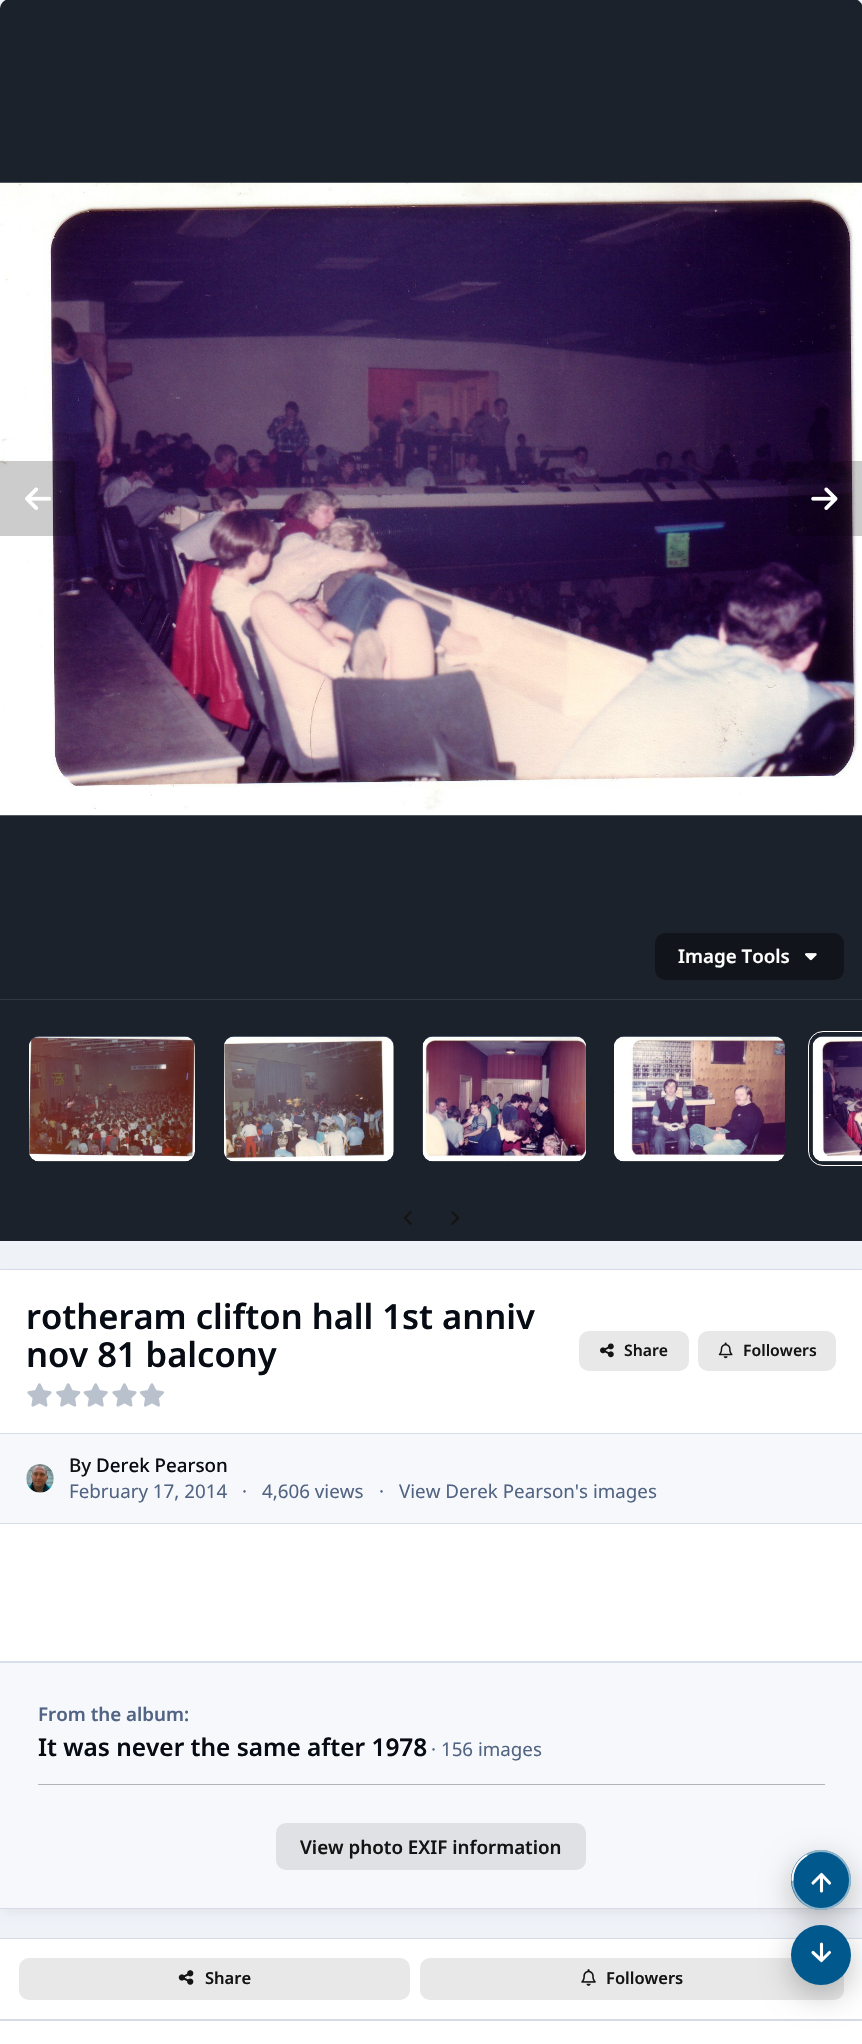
void draw(SkCanvas* c) {
SkPaint p;
p.setAntiAlias(true);
auto F=[&](const char* family, int weight, float size, bool italic = false){SkFontStyle style(weight, SkFontStyle::kNormal_Width,italic ? SkFontStyle::kItalic_Slant : SkFontStyle::kUpright_Slant);SkFont result(fontMgr->matchFamilyStyle(family, style), size);result.setSubpixel(true);return result;};
auto T=[&](const char* s, float x, float y, const SkFont& font){c->drawString(s, x, y, font, p);};
auto R=[&](float x, float y, float w, float h){c->drawRect(SkRect::MakeXYWH(x, y, w, h), p);};
auto Q=[&](float x, float y, float w, float h, float radius){c->drawRoundRect(SkRect::MakeXYWH(x, y, w, h), radius, radius, p);};
auto I=[&](const char* path, float x, float y, float w, float h){auto image = SkImages::DeferredFromEncodedData(SkData::MakeFromFileName(path));c->drawImageRect(image, SkRect::MakeXYWH(x, y, w, h), SkSamplingOptions());};
auto P=[&](const char* data, bool evenOdd = false){SkPath result = *SkParsePath::FromSVGString(data);if (evenOdd) result.setFillType(SkPathFillType::kEvenOdd);return result;};
c->clear(0xffeff2f7);
p.setColor(0xff1c222b);
c->drawPath(P("M10-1h843c5.5 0 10 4.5 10 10v990h-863v-990c0-5.5 4.5-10 10-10z"),p);
I("1.png",0,182,862,634);
p.setColor(0x33000000);
R(0,461,75,75);
I("2.png",25,487,27,23);
R(788,461,74,75);
I("3.png",811,487,27,23);
p.setColor(0xff11141a);
Q(655,933,189,47,10);
auto f1 = F("Noto Sans",600,18.75);
p.setColor(0xffffffff);
T("Image Tools",678,963,f1);
I("4.png",805,953,12,8);
p.setColor(0xff1c222b);
R(0,1000,862,241);
p.setColor(0xff333840);
R(0,999,862,1);
p.setColor(0xff384862);
Q(29,1036,166,125,10);
I("5.png",29,1036,166,126);
Q(224,1036,170,125,10);
I("6.png",224,1036,170,126);
Q(423,1036,163,125,10);
I("7.png",422,1036,164,126);
Q(614,1036,171,125,10);
I("8.png",614,1036,171,126);
c->drawPath(P("M823 1036h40v125h-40c-5.5 0-10-4.5-10-10v-105c0-5.5 4.5-10 10-10z"),p);
p.setStroke(true);
p.setStrokeWidth(1);
p.setColor(0xffffffff);
c->drawRoundRect(SkRect::MakeXYWH(808.5,1031.5,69,134),14.5,14.5,p);
I("9.png",812,1036,50,126);
I("10.png",403,1211,9,14);
I("11.png",451,1211,8,14);
p.setStroke(false);
p.setColor(0x0d01030a);
p.setMaskFilter(SkMaskFilter::MakeBlur(kNormal_SkBlurStyle, 4.5));
c->drawRect(SkRect::MakeXYWH(4,1280,855,633),p);
p.setMaskFilter(nullptr);
p.setColor(0xffd7dfea);
R(0,1661,862,2);
p.setColor(0xffd5dbe6);
R(0,1269,862,1);
R(0,1908,862,1);
p.setColor(0xffffffff);
R(0,1270,862,391);
p.setColor(0xffd7dfea);
R(0,1523,862,1);
auto f2 = F("Noto Sans",600,34.5);
p.setColor(0xff060b14);
T("rotheram clifton hall 1st anniv",26,1329,f2);
T("nov 81 balcony",26,1367,f2);
I("12.png",27,1383,25,24);
I("13.png",56,1383,25,24);
I("14.png",83,1383,25,24);
I("12.png",112,1383,25,24);
I("15.png",139,1383,25,24);
p.setColor(0xffe8e8e8);
Q(579,1331,110,40,10);
I("16.png",600,1343,14,15);
auto f3 = F("Noto Sans",600,15.75);
p.setColor(0xff141414);
T("Share",624,1356,f3);
p.setColor(0xffe8e8e8);
Q(698,1331,138,40,10);
I("17.png",718,1342,15,17);
p.setColor(0xff141414);
T("Followers",743,1356,f3);
p.setColor(0xfff7f8fb);
R(0,1434,862,89);
p.setColor(0xffd7dfea);
R(0,1433,862,1);
p.setColor(0xffe5eaf2);
Q(26,1464,28,29,14);
I("18.png",26,1464,28,29);
auto f4 = F("Noto Sans",500,18.75);
p.setColor(0xff141414);
T("By",69,1472,f4);
p.setColor(0xff060b14);
T("Derek Pearson",96,1472,f4);
auto f5 = F("Noto Sans",400,18.75);
p.setColor(0xff516483);
T("February 17, 2014",69,1498,f5);
T("·",242,1498,f5);
T("4,606 views",262,1498,f5);
T("·",379,1498,f5);
T("View Derek Pearson's images",399,1498,f5);
p.setColor(0xfff7f8fb);
R(0,1663,862,245);
p.setColor(0xff516483);
T("From the album:",38,1721,f1);
auto f6 = F("Noto Sans",600,24.4);
p.setColor(0xff060b14);
T("It was never the same after 1978",38,1756,f6);
p.setColor(0xff516483);
T("· 156 images",431,1756,f5);
p.setColor(0xffb3b4b6);
R(38,1784,787,1);
p.setColor(0xffe0e1e4);
Q(276,1823,310,47,10);
p.setColor(0xff141414);
T("View photo EXIF information",300,1854,f1);
p.setColor(0xffffffff);
R(0,1939,862,80);
p.setColor(0xffd5dbe6);
R(0,1938,862,1);
R(0,2019,862,2);
p.setColor(0xffe8e8e8);
Q(19,1958,391,42,10);
I("19.png",178,1970,16,15);
auto f7 = F("Noto Sans",600,16.5);
p.setColor(0xff141414);
T("Share",205,1984,f7);
p.setColor(0xffe8e8e8);
Q(420,1958,424,42,10);
I("20.png",581,1969,15,17);
p.setColor(0xff141414);
T("Followers",606,1984,f7);
p.setColor(0xffffffff);
R(0,2021,862,23);
p.setColor(0x40000000);
p.setMaskFilter(SkMaskFilter::MakeBlur(kNormal_SkBlurStyle, 15));
c->drawRoundRect(SkRect::MakeXYWH(791,1860,60,60),30,30,p);
p.setMaskFilter(nullptr);
p.setColor(0xff00588c);
c->drawCircle(821,1880,30,p);
p.setStroke(true);
p.setStrokeWidth(3.1);
p.setStrokeCap(SkPaint::kRound_Cap);
p.setStrokeJoin(SkPaint::kRound_Join);
p.setColor(0xffffffff);
c->drawPath(P("M813 1883l8.5-8.5l8 8.5m-8-8.5v16.5"),p);
p.setStrokeWidth(1.9);
p.setColor(0x8cffffff);
c->drawPath(P("M792.5 1880c0-16 13-29 28.5-29c16 0 29 13 29 29c0 16-13 29-29 29c-15.5 0-28.5-13-28.5-29z"),p);
p.setColor(0xffffffff);
c->drawPath(P("M792.5 1880c0-10.5 5.5-19.5 14-24.5"),p);
p.setStroke(false);
p.setColor(0x40000000);
p.setMaskFilter(SkMaskFilter::MakeBlur(kNormal_SkBlurStyle, 15));
c->drawRoundRect(SkRect::MakeXYWH(791,1935,60,60),30,30,p);
p.setMaskFilter(nullptr);
p.setColor(0xff00588c);
c->drawCircle(821,1955,30,p);
p.setStroke(true);
p.setStrokeWidth(3.1);
p.setColor(0xffffffff);
c->drawPath(P("M813 1952.5l8.5 8l8-8m-8-8.5v16.5"),p);
}
